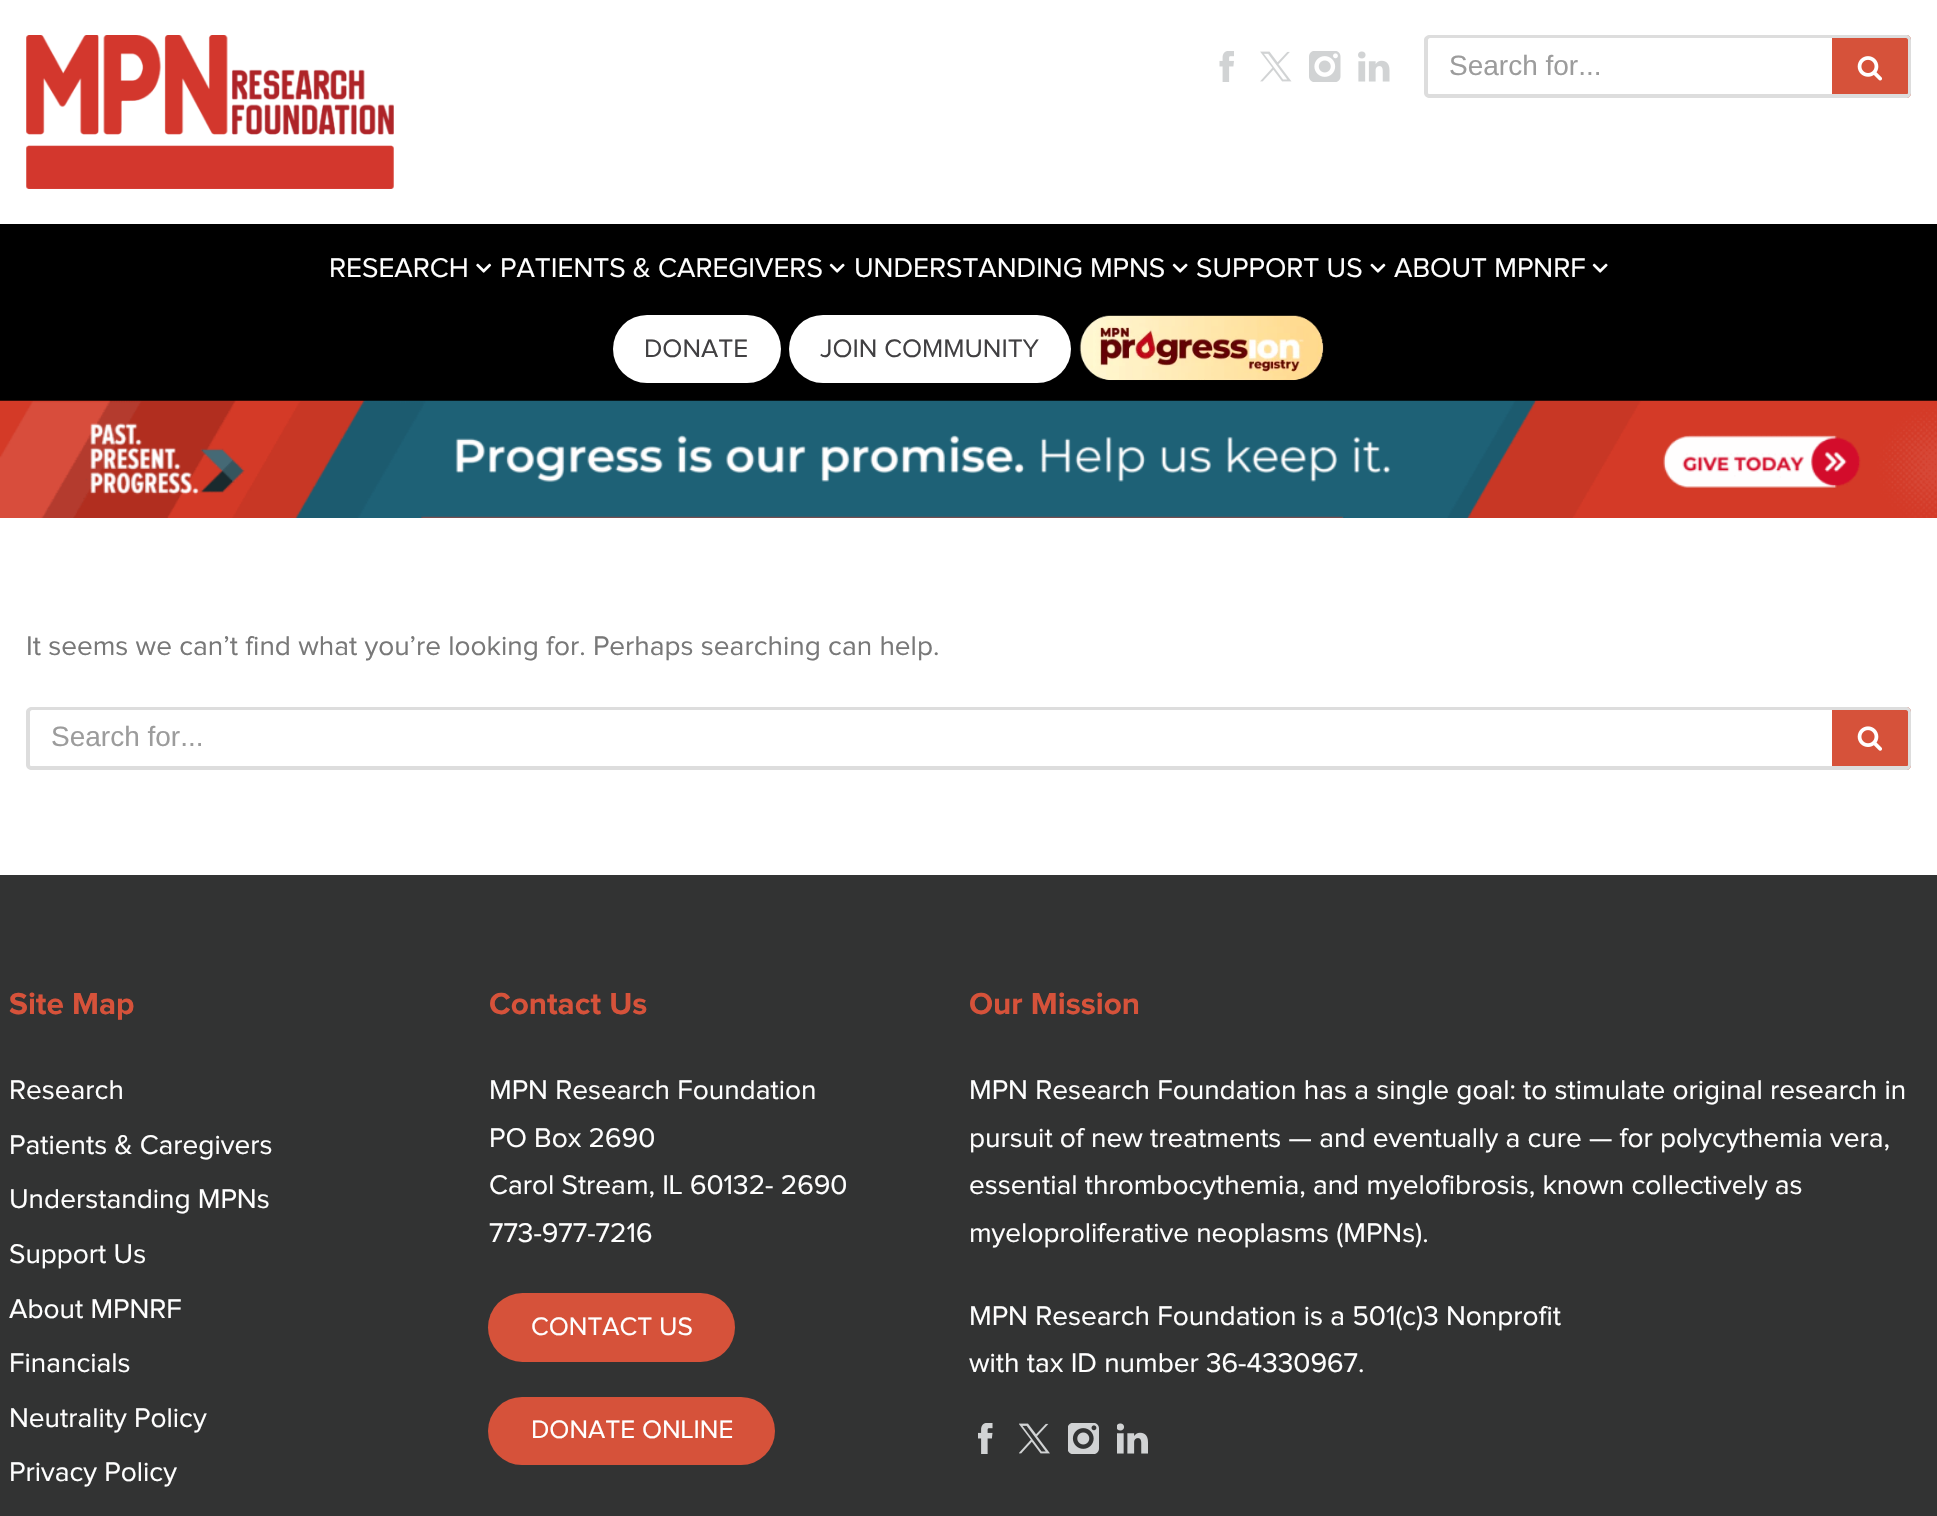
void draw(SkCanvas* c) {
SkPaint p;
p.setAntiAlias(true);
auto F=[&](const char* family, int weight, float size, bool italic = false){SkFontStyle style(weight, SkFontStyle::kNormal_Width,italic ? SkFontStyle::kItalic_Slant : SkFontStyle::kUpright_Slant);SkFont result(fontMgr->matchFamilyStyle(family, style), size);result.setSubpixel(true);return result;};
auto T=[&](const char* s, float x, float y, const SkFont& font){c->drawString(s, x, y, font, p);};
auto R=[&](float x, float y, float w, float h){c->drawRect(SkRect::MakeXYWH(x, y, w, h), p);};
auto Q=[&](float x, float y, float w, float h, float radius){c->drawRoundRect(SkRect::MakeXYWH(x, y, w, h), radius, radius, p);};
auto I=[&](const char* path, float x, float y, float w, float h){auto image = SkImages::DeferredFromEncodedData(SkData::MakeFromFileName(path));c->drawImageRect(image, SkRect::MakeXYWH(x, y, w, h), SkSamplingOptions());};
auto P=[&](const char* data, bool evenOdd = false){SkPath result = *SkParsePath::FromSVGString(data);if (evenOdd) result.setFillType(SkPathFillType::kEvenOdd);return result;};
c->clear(0xffffffff);
I("1.png",26,35,368,154);
I("2.png",1219,51,15,31);
I("3.png",1260,51,32,31);
I("4.png",1309,51,32,31);
I("5.png",1358,51,32,31);
p.setColor(0xffdddddd);
c->drawPath(P("M1430 35h402v63h-402c-3 0-6-2-6-5v-53c0-3 3-5 6-5zm0 3h402v56h-402c-1 0-2 0-2-1v-53c0-1 1-2 2-2z",true),p);
auto f1 = F("Liberation Sans",400,28);
p.setColor(0xff9c9c9c);
T("Search for...",1449,75,f1);
p.setColor(0xffd6523a);
c->drawPath(P("M1832 35h74c3 0 5 2 5 5v53c0 3-2 5-5 5h-74z"),p);
p.setColor(0xffdddddd);
c->drawPath(P("M1832 35h74c3 0 5 2 5 5v53c0 3-2 5-5 5h-74zm0 3h74c1 0 2 1 2 2v53c0 1-1 1-2 1h-74z",true),p);
I("6.png",1857,56,25,25);
p.setColor(0xff000000);
R(0,224,1937,177);
auto f2 = F("Proxima Nova",400,28);
p.setColor(0xffffffff);
T("RESEARCH",329,277,f2);
I("7.png",476,263,16,10);
T("PATIENTS & CAREGIVERS",500,277,f2);
I("8.png",829,263,16,10);
T("UNDERSTANDING MPNS",854,277,f2);
I("8.png",1172,263,16,10);
T("SUPPORT US",1196,277,f2);
I("9.png",1370,263,16,10);
T("ABOUT MPNRF",1394,277,f2);
I("8.png",1592,263,16,10);
Q(613,315,168,68,34);
auto f3 = F("Proxima Nova",400,26.25);
p.setColor(0xff414042);
T("DONATE",644,357,f3);
p.setColor(0xffffffff);
Q(789,315,282,68,34);
p.setColor(0xff414042);
T("JOIN COMMUNITY",820,357,f3);
I("10.png",1079,315,245,66);
I("11.png",0,400,1937,118);
p.setColor(0xff787878);
T("It seems we can’t find what you’re looking for. Perhaps searching can help.",26,655,f2);
p.setColor(0xffdddddd);
c->drawPath(P("M32 707h1800v63h-1800c-3 0-6-2-6-5v-53c0-3 3-5 6-5zm0 3h1800v56h-1800c-1 0-2 0-2-1v-53c0-1 1-2 2-2z",true),p);
p.setColor(0xff9c9c9c);
T("Search for...",51,746,f1);
p.setColor(0xffd6523a);
c->drawPath(P("M1832 707h74c3 0 5 2 5 5v53c0 3-2 5-5 5h-74z"),p);
p.setColor(0xffdddddd);
c->drawPath(P("M1832 707h74c3 0 5 2 5 5v53c0 3-2 5-5 5h-74zm0 3h74c1 0 2 1 2 2v53c0 1-1 1-2 1h-74z",true),p);
I("12.png",1857,726,25,25);
p.setColor(0xff323333);
R(0,875,1937,641);
auto f4 = F("Proxima Nova",700,31.5);
p.setColor(0xffd6523a);
T("Site Map",9,1014,f4);
p.setColor(0xffffffff);
T("Research",9,1099,f2);
T("Patients & Caregivers",9,1154,f2);
T("Understanding MPNs",9,1208,f2);
T("Support Us",9,1263,f2);
T("About MPNRF",9,1318,f2);
T("Financials",9,1372,f2);
T("Neutrality Policy",9,1427,f2);
T("Privacy Policy",9,1481,f2);
p.setColor(0xffd6523a);
T("Contact Us",489,1014,f4);
p.setColor(0xffffffff);
T("MPN Research Foundation",489,1099,f2);
T("PO Box 2690",489,1147,f2);
T("Carol Stream, IL 60132- 2690",489,1194,f2);
T("773-977-7216",489,1242,f2);
p.setColor(0xffd6523a);
Q(488,1293,247,69,34.5);
p.setColor(0xffffffff);
T("CONTACT US",531,1335,f3);
p.setColor(0xffd6523a);
Q(488,1397,287,68,34);
p.setColor(0xffffffff);
T("DONATE ONLINE",531,1438,f3);
p.setColor(0xffd6523a);
T("Our Mission",969,1014,f4);
p.setColor(0xffffffff);
T("MPN Research Foundation has a single goal: to stimulate original research in",969,1099,f2);
T("pursuit of new treatments — and eventually a cure — for polycythemia vera,",969,1147,f2);
T("essential thrombocythemia, and myelofibrosis, known collectively as",969,1194,f2);
T("myeloproliferative neoplasms (MPNs).",969,1242,f2);
T("MPN Research Foundation is a 501(c)3 Nonprofit",969,1325,f2);
T("with tax ID number 36-4330967.",969,1372,f2);
I("13.png",978,1423,15,31);
I("14.png",1019,1423,31,31);
I("15.png",1068,1423,31,31);
I("16.png",1117,1423,31,31);
}
